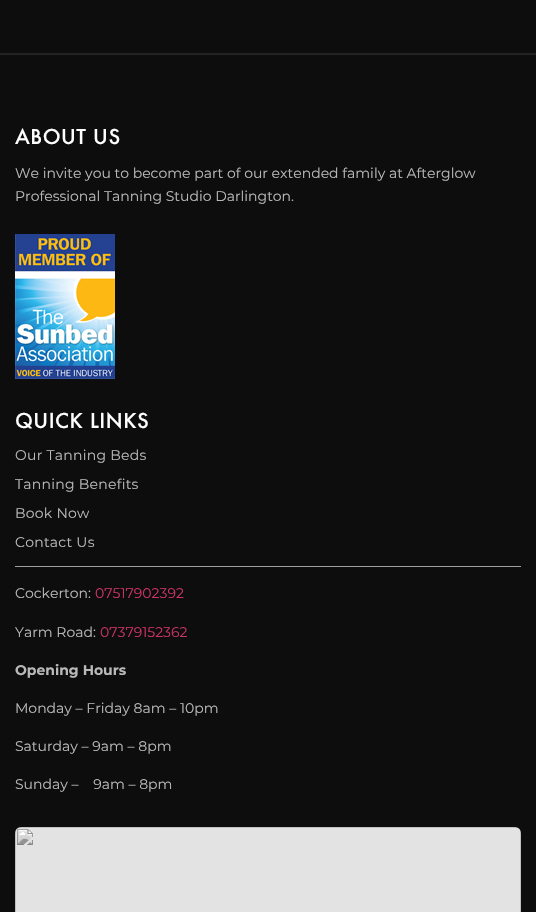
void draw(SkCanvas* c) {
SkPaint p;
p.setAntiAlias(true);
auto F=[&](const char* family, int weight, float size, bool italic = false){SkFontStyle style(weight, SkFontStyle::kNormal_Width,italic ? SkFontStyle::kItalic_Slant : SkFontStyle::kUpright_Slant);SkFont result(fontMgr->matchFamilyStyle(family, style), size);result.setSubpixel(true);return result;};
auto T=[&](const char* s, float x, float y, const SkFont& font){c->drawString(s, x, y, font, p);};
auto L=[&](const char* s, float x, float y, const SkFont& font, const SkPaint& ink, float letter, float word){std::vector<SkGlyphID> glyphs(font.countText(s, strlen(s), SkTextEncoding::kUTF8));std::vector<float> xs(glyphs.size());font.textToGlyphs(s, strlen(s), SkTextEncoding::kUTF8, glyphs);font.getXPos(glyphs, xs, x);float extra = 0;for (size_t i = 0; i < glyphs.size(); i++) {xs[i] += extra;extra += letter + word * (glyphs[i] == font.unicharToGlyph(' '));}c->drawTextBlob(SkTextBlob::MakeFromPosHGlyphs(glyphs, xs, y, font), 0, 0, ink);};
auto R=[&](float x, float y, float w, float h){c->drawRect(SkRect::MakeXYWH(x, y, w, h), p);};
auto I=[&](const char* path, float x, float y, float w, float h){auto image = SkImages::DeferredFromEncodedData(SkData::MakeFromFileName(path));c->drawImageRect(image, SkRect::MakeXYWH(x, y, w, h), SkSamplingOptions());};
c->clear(0xff0d0d0d);
p.setColor(0xff232323);
R(0,53,536,2);
auto f1 = F("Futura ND",500,20);
p.setColor(0xffffffff);
L("ABOUT US",15,144,f1,p,.5,0);
auto f2 = F("Montserrat",400,14);
p.setColor(0xffb9b9b9);
T("We invite you to become part of our extended family at Afterglow",15,178,f2);
T("Professional Tanning Studio Darlington.",15,201,f2);
I("1.png",15,234,100,145);
p.setColor(0xffffffff);
L("QUICK LINKS",15,428,f1,p,.5,0);
p.setColor(0xffb9b9b9);
L("Our Tanning Beds",15,460,f2,p,.25,0);
L("Tanning Benefits",15,489,f2,p,.25,0);
L("Book Now",15,518,f2,p,.25,0);
L("Contact Us",15,547,f2,p,.25,0);
p.setColor(0xffa0a0a0);
R(15,566,506,1);
p.setColor(0xffb9b9b9);
T("Cockerton:",15,598,f2);
p.setColor(0xffcc3366);
T("07517902392",95,598,f2);
p.setColor(0xffb9b9b9);
T("Yarm Road:",15,637,f2);
p.setColor(0xffcc3366);
T("07379152362",100,637,f2);
auto f3 = F("Montserrat",700,14);
p.setColor(0xffb9b9b9);
T("Opening Hours",15,675,f3);
T("Monday – Friday 8am – 10pm",15,713,f2);
T("Saturday – 9am – 8pm",15,751,f2);
T("Sunday –    9am – 8pm",15,789,f2);
I("2.png",15,827,506,85);
}
